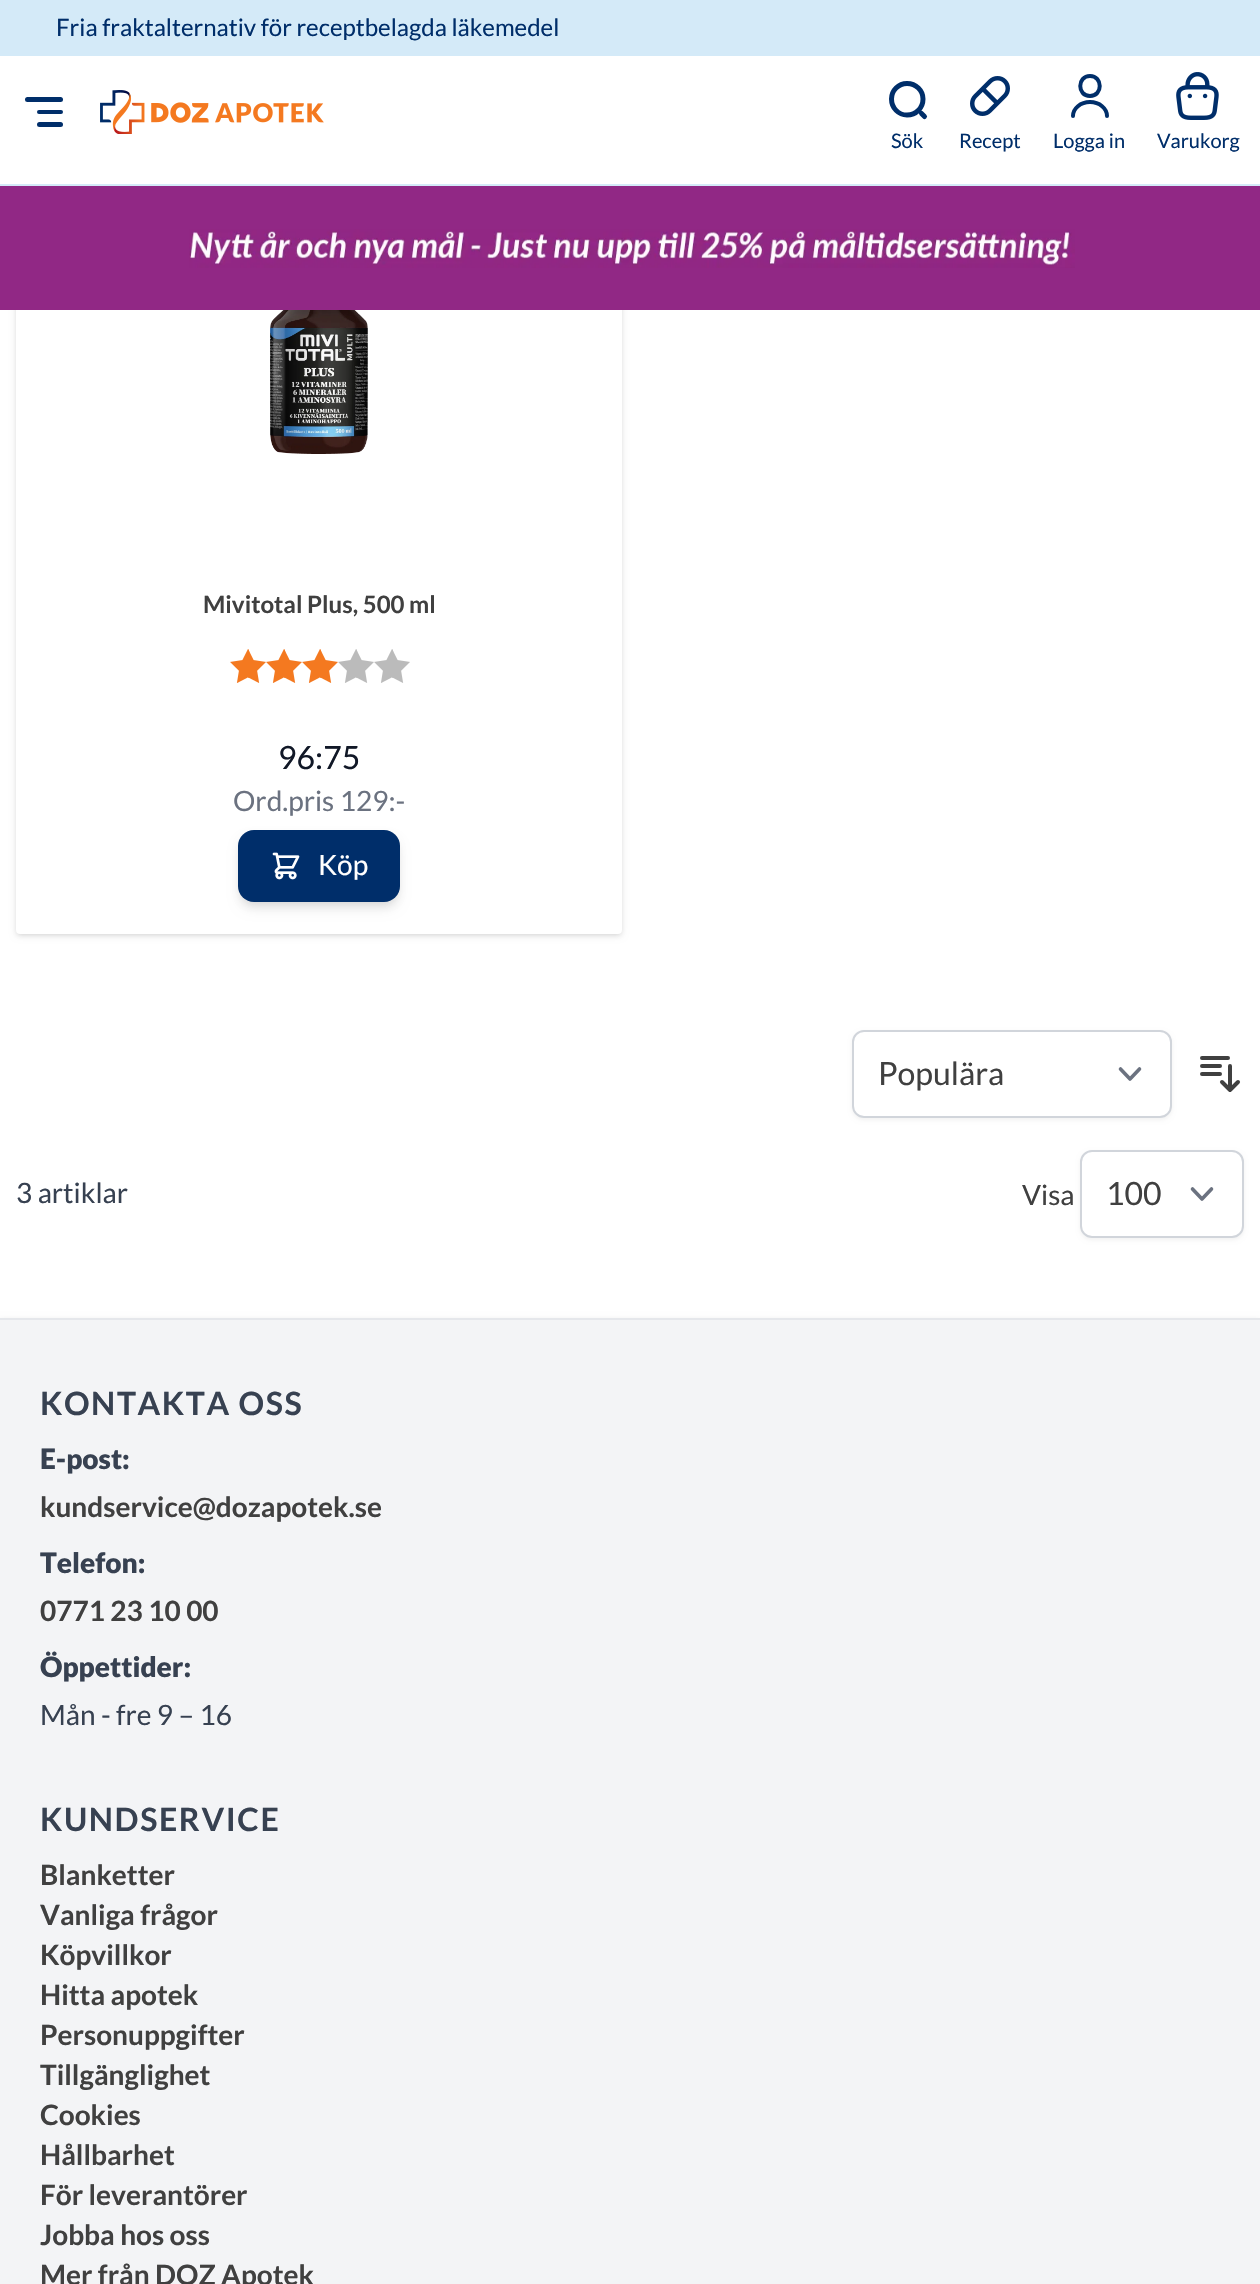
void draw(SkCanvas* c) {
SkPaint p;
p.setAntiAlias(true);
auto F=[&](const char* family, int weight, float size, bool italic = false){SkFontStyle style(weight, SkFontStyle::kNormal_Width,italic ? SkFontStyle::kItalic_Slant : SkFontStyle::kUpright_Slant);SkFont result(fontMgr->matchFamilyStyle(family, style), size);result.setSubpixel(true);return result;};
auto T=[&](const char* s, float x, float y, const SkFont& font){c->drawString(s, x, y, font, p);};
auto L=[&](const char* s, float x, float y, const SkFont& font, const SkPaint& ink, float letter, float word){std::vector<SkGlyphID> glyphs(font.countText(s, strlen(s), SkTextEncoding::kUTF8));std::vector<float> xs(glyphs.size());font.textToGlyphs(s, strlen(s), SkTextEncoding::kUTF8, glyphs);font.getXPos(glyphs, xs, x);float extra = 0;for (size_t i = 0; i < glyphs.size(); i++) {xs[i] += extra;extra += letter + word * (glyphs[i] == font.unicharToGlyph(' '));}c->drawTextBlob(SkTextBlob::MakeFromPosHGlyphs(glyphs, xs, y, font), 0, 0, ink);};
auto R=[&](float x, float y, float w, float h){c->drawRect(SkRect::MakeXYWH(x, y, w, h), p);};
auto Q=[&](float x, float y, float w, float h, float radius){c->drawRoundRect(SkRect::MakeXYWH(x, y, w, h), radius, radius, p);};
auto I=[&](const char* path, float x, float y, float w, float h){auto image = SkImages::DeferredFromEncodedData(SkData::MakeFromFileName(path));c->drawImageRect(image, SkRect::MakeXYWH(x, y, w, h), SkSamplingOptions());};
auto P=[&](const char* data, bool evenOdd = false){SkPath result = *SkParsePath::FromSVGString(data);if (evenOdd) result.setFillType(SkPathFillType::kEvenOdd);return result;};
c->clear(0xffffffff);
p.setColor(0xffd4eaf8);
R(0,0,1260,56);
auto f1 = F("Lato",400,24);
p.setColor(0xff002e6a);
T("Fria fraktalternativ för receptbelagda läkemedel",56,36,f1);
p.setColor(0xffd4eaf8);
R(0,184,1260,2);
p.setColor(0xff002e6a);
Q(25,97,38,5,2.5);
Q(37,110,26,4,2);
Q(37,122,26,5,2.5);
I("1.png",100,90,224,44);
p.setStroke(true);
p.setStrokeWidth(5);
p.setStrokeCap(SkPaint::kRound_Cap);
p.setStrokeJoin(SkPaint::kRound_Join);
c->drawPath(P("M924.5 116.5l-3-3m1.5-14.5c0 9-7 16-16 16c-8.5 0-15.5-7-15.5-16c0-8.5 7-15.5 15.5-15.5c9 0 16 7 16 15.5z"),p);
auto f2 = F("Lato",400,20);
p.setStroke(false);
T("Sök",891,148,f2);
I("2.png",970,76,40,40);
T("Recept",959,148,f2);
p.setStroke(true);
p.setStrokeWidth(4);
c->drawPath(P("M1090 96c13 0 13-20 0-20c-13 0-13 20 0 20zm17 20c0-7.5-7.5-14-17-14c-9.5 0-17 6.5-17 14"),p);
p.setStroke(false);
T("Logga in",1053,148,f2);
I("3.png",1176,72,43,48);
T("Varukorg",1157,148,f2);
p.setColor(0x1a000000);
p.setMaskFilter(SkMaskFilter::MakeBlur(kNormal_SkBlurStyle, 2));
c->drawRoundRect(SkRect::MakeXYWH(18,234,602,700),2,2,p);
p.setMaskFilter(nullptr);
p.setMaskFilter(SkMaskFilter::MakeBlur(kNormal_SkBlurStyle, 3));
c->drawRoundRect(SkRect::MakeXYWH(16,232,606,704),4,4,p);
p.setMaskFilter(nullptr);
p.setColor(0xffffffff);
Q(16,230,606,704,4);
p.setColor(0xff912885);
R(0,186,1260,124);
I("4.png",189,229,886,39);
I("5.png",270,310,98,144);
auto f3 = F("Lato",700,24);
p.setColor(0xff404040);
T("Mivitotal Plus, 500 ml",203,613,f3);
I("6.png",230,649,36,34);
I("6.png",266,649,36,34);
I("6.png",302,649,36,34);
I("7.png",338,649,36,34);
I("7.png",374,649,36,34);
auto f4 = F("Lato",400,32);
p.setColor(0xff111827);
T("96:75",278,769,f4);
auto f5 = F("Lato",400,28);
p.setColor(0xff6b7280);
T("Ord.pris 129:-",233,811,f5);
p.setColor(0x1a000000);
p.setMaskFilter(SkMaskFilter::MakeBlur(kNormal_SkBlurStyle, 4));
c->drawRoundRect(SkRect::MakeXYWH(242,838,154,64),12,12,p);
p.setMaskFilter(nullptr);
p.setMaskFilter(SkMaskFilter::MakeBlur(kNormal_SkBlurStyle, 6));
c->drawRoundRect(SkRect::MakeXYWH(240,840,158,68),14,14,p);
p.setMaskFilter(nullptr);
p.setColor(0xff002e6a);
Q(238,830,162,72,16);
I("8.png",272,852,28,28);
p.setColor(0xffffffff);
T("Köp",318,875,f5);
p.setColor(0x0d000000);
p.setMaskFilter(SkMaskFilter::MakeBlur(kNormal_SkBlurStyle, 2));
c->drawRoundRect(SkRect::MakeXYWH(852,1032,320,88),12,12,p);
p.setMaskFilter(nullptr);
p.setColor(0xffffffff);
Q(852,1030,320,88,12);
p.setStroke(true);
p.setStrokeWidth(3.6);
p.setColor(0xff6b7280);
c->drawPath(P("M1120.5 1069l9.5 10l9.5-10"),p);
p.setStrokeWidth(2);
p.setStrokeCap(SkPaint::kButt_Cap);
p.setStrokeJoin(SkPaint::kMiter_Join);
p.setColor(0xffd1d5db);
c->drawRoundRect(SkRect::MakeXYWH(853,1031,318,86),11,11,p);
p.setStroke(false);
p.setColor(0xff404040);
T("Populära",878,1085,f4);
p.setStroke(true);
p.setStrokeWidth(4);
p.setStrokeCap(SkPaint::kRound_Cap);
p.setStrokeJoin(SkPaint::kRound_Join);
c->drawPath(P("M1202 1058h26m-26 8h18m-18 8h18m10-8v24m0 0l-8-8m8 8l8-8"),p);
p.setStroke(false);
p.setColor(0xff374151);
T("3 artiklar",16,1203,f5);
p.setColor(0xff404040);
T("Visa",1022,1205,f5);
p.setColor(0x0d000000);
p.setMaskFilter(SkMaskFilter::MakeBlur(kNormal_SkBlurStyle, 2));
c->drawRoundRect(SkRect::MakeXYWH(1080,1152,164,88),12,12,p);
p.setMaskFilter(nullptr);
p.setColor(0xffffffff);
Q(1080,1150,164,88,12);
p.setStroke(true);
p.setStrokeWidth(3.6);
p.setColor(0xff6b7280);
c->drawPath(P("M1192.5 1189l9.5 10l9.5-10"),p);
p.setStrokeWidth(2);
p.setStrokeCap(SkPaint::kButt_Cap);
p.setStrokeJoin(SkPaint::kMiter_Join);
p.setColor(0xffd1d5db);
c->drawRoundRect(SkRect::MakeXYWH(1081,1151,162,86),11,11,p);
p.setStroke(false);
p.setColor(0xff404040);
T("100",1106,1205,f4);
p.setColor(0x1a000000);
p.setMaskFilter(SkMaskFilter::MakeBlur(kNormal_SkBlurStyle, 3));
c->drawRect(SkRect::MakeXYWH(0,1320,1260,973),p);
p.setMaskFilter(nullptr);
p.setColor(0xfff3f4f6);
R(0,1320,1260,964);
p.setColor(0xffe5e7eb);
R(0,1318,1260,2);
auto f6 = F("Lato",700,32);
p.setColor(0xff374151);
L("KONTAKTA OSS",40,1415,f6,p,1.6,0);
auto f7 = F("Lato",900,28);
T("E-post:",40,1469,f7);
auto f8 = F("Lato",700,28);
p.setColor(0xff404040);
T("kundservice@dozapotek.se",40,1517,f8);
p.setColor(0xff374151);
T("Telefon:",40,1573,f7);
p.setColor(0xff404040);
T("0771 23 10 00",40,1621,f8);
p.setColor(0xff374151);
T("Öppettider:",40,1677,f7);
T("Mån - fre 9 – 16",40,1725,f5);
L("KUNDSERVICE",40,1831,f6,p,1.6,0);
p.setColor(0xff404040);
T("Blanketter",40,1885,f8);
T("Vanliga frågor",40,1925,f8);
T("Köpvillkor",40,1965,f8);
T("Hitta apotek",40,2005,f8);
T("Personuppgifter",40,2045,f8);
T("Tillgänglighet",40,2085,f8);
T("Cookies",40,2125,f8);
T("Hållbarhet",40,2165,f8);
T("För leverantörer",40,2205,f8);
T("Jobba hos oss",40,2245,f8);
T("Mer från DOZ Apotek",40,2285,f8);
}
